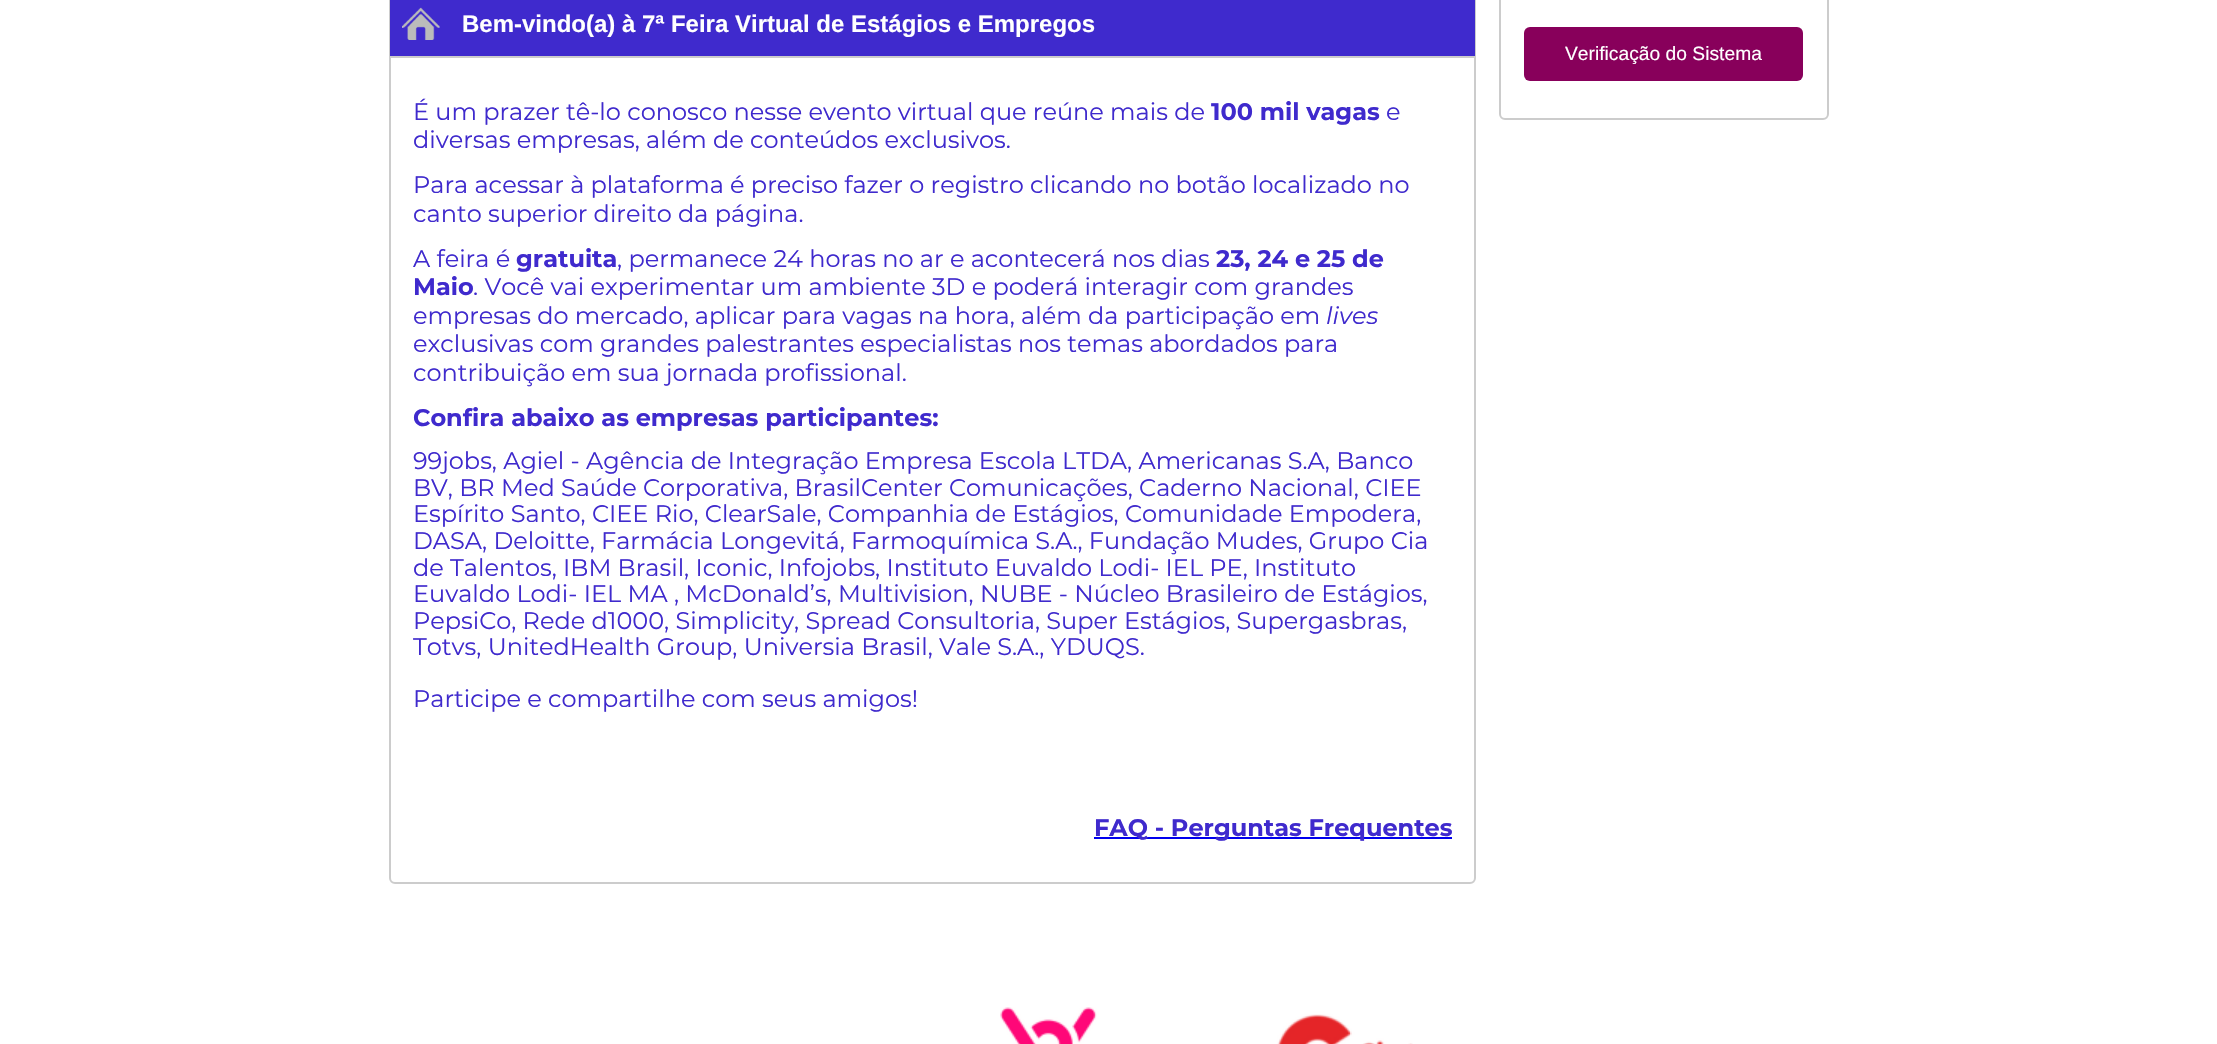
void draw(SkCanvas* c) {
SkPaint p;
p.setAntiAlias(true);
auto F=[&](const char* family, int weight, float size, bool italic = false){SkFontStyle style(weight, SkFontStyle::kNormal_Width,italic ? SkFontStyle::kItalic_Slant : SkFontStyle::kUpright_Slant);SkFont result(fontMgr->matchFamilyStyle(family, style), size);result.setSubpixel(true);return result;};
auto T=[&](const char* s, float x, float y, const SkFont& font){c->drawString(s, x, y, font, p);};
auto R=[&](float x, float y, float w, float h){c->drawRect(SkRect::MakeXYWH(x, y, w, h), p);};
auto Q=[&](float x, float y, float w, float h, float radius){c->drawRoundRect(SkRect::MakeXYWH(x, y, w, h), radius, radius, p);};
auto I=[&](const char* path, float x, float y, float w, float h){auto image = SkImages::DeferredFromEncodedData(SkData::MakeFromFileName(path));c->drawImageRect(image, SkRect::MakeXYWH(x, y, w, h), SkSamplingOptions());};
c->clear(0xffffffff);
p.setStroke(true);
p.setStrokeWidth(2);
p.setColor(0xffcccccc);
c->drawRoundRect(SkRect::MakeXYWH(390,-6,1085,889),5,5,p);
p.setStroke(false);
p.setColor(0xff3f2acd);
R(390,0,1085,56);
p.setColor(0xffcccccc);
R(390,56,1085,2);
I("1.png",402,7,38,33);
auto f1 = F("Liberation Sans",700,24);
p.setColor(0xffffffff);
T("Bem-vindo(a) à 7ª Feira Virtual de Estágios e Empregos",462,32,f1);
auto f2 = F("Montserrat",400,24);
p.setColor(0xff3f2acd);
T("É um prazer tê-lo conosco nesse evento virtual que reúne mais de",413,120,f2);
auto f3 = F("Montserrat",700,24);
T("100 mil vagas",1211,120,f3);
T("e",1386,120,f2);
T("diversas empresas, além de conteúdos exclusivos.",413,148,f2);
T("Para acessar à plataforma é preciso fazer o registro clicando no botão localizado no",413,193,f2);
T("canto superior direito da página.",413,222,f2);
T("A feira é",413,267,f2);
T("gratuita",516,267,f3);
T(", permanece 24 horas no ar e acontecerá nos dias",617,267,f2);
T("23, 24 e 25 de",1216,267,f3);
T("Maio",413,295,f3);
T(". Você vai experimentar um ambiente 3D e poderá interagir com grandes",473,295,f2);
T("empresas do mercado, aplicar para vagas na hora, além da participação em",413,324,f2);
auto f4 = F("Montserrat",400,24,true);
T("lives",1326,324,f4);
T("exclusivas com grandes palestrantes especialistas nos temas abordados para",413,352,f2);
T("contribuição em sua jornada profissional.",413,381,f2);
T("Confira abaixo as empresas participantes:",413,426,f3);
T("99jobs, Agiel - Agência de Integração Empresa Escola LTDA, Americanas S.A, Banco",413,469,f2);
T("BV, BR Med Saúde Corporativa, BrasilCenter Comunicações, Caderno Nacional, CIEE",413,496,f2);
T("Espírito Santo, CIEE Rio, ClearSale, Companhia de Estágios, Comunidade Empodera,",413,522,f2);
T("DASA, Deloitte, Farmácia Longevitá, Farmoquímica S.A., Fundação Mudes, Grupo Cia",413,549,f2);
T("de Talentos, IBM Brasil, Iconic, Infojobs, Instituto Euvaldo Lodi- IEL PE, Instituto",413,576,f2);
T("Euvaldo Lodi- IEL MA , McDonald’s, Multivision, NUBE - Núcleo Brasileiro de Estágios,",413,602,f2);
T("PepsiCo, Rede d1000, Simplicity, Spread Consultoria, Super Estágios, Supergasbras,",413,629,f2);
T("Totvs, UnitedHealth Group, Universia Brasil, Vale S.A., YDUQS.",413,655,f2);
T("Participe e compartilhe com seus amigos!",413,707,f2);
p.setColor(0xff0000ee);
R(1094,837,358,2);
p.setColor(0xff3f2acd);
T("FAQ - Perguntas Frequentes",1094,836,f3);
p.setStroke(true);
p.setColor(0xffcccccc);
c->drawRoundRect(SkRect::MakeXYWH(1500,-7,328,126),5,5,p);
p.setStroke(false);
p.setColor(0xff88005b);
Q(1524,27,279,54,6);
auto f5 = F("Liberation Sans",400,19.25);
p.setColor(0xffffffff);
T("Verificação do Sistema",1565,60,f5);
I("2.png",1000,1007,413,37);
}
